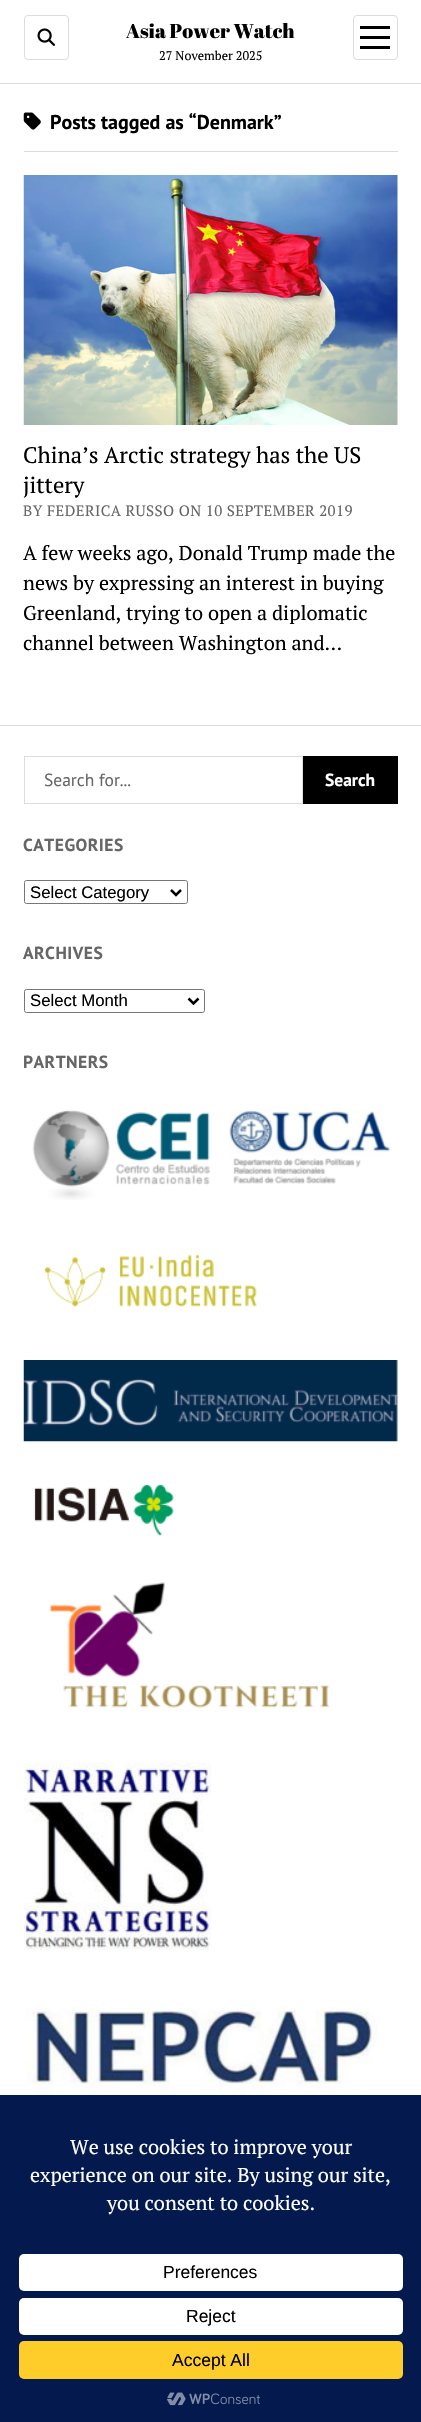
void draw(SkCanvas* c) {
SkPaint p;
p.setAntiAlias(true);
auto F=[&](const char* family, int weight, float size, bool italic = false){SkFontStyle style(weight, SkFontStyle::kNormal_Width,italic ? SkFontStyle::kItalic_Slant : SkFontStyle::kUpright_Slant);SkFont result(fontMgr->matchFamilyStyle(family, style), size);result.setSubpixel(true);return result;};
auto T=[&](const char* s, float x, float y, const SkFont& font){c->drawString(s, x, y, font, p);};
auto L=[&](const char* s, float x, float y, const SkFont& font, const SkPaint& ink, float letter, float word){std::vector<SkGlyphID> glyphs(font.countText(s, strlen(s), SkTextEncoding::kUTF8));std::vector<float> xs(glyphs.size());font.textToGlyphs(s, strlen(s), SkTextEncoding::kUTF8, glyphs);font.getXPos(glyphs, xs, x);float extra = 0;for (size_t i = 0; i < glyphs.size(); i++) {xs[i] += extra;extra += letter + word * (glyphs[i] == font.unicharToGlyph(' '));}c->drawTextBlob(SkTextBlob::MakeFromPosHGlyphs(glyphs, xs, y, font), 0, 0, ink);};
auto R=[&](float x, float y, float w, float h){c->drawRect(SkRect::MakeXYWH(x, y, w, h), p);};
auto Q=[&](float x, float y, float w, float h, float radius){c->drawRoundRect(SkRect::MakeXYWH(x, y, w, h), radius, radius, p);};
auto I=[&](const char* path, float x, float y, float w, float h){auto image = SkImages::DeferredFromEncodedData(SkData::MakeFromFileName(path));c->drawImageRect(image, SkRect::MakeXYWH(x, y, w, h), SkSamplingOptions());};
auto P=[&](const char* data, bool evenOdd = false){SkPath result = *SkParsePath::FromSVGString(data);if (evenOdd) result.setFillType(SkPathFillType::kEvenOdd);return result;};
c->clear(0xffffffff);
p.setColor(0xffdcdcdc);
R(0,83,421,1);
p.setStroke(true);
p.setStrokeWidth(1);
c->drawRoundRect(SkRect::MakeXYWH(24.5,15.5,44,44),3.5,3.5,p);
I("1.png",37,28,18,18);
auto f1 = F("Abril Fatface",400,20);
p.setStroke(false);
p.setColor(0xff000000);
T("Asia Power Watch",126,38,f1);
auto f2 = F("PT Serif",400,12.5);
T("27 November 2025",159,60,f2);
p.setStroke(true);
p.setColor(0xffdcdcdc);
c->drawRoundRect(SkRect::MakeXYWH(353.5,15.5,44,44),3.5,3.5,p);
p.setStroke(false);
p.setColor(0xff000000);
R(360,26,30,3);
R(360,36,30,3);
R(360,46,30,3);
p.setColor(0xffdcdcdc);
R(24,151,374,1);
I("2.png",23,112,18,18);
auto f3 = F("PT Sans",700,20);
p.setColor(0xff000000);
T("Posts tagged as “Denmark”",50,129,f3);
I("3.png",23,175,375,250);
auto f4 = F("PT Serif",400,22.5);
T("China’s Arctic strategy has the US",23,463,f4);
T("jittery",23,493,f4);
auto f5 = F("PT Serif",400,15);
p.setColor(0xff666666);
L("BY FEDERICA RUSSO ON 10 SEPTEMBER 2019",23,516,f5,p,.45,0);
auto f6 = F("PT Serif",400,20);
p.setColor(0xff000000);
T("A few weeks ago, Donald Trump made the",23,560,f6);
T("news by expressing an interest in buying",23,590,f6);
T("Greenland, trying to open a diplomatic",23,620,f6);
T("channel between Washington and…",23,650,f6);
p.setColor(0xffdcdcdc);
R(0,725,421,1);
p.setStroke(true);
c->drawRect(SkRect::MakeXYWH(24.5,756.5,278,47),p);
auto f7 = F("PT Sans",400,17.5);
p.setStroke(false);
p.setColor(0xff666666);
T("Search for...",44,786,f7);
p.setColor(0xff000000);
R(303,756,95,48);
auto f8 = F("PT Sans",700,17.5);
p.setColor(0xffffffff);
T("Search",325,786,f8);
p.setColor(0xff666666);
L("CATEGORIES",23,851,f8,p,.5,0);
p.setStroke(true);
p.setColor(0xff767676);
c->drawRoundRect(SkRect::MakeXYWH(24.5,880.5,163,23),2,2,p);
p.setStrokeWidth(2.5);
p.setColor(0xff000000);
c->drawPath(P("M171 890l5 5l5-5"),p);
auto f9 = F("Liberation Sans",400,16.75);
p.setStroke(false);
T("Select Category",30,898,f9);
p.setColor(0xff666666);
L("ARCHIVES",23,959,f8,p,.5,0);
p.setStroke(true);
p.setStrokeWidth(1);
p.setColor(0xff767676);
c->drawRoundRect(SkRect::MakeXYWH(24.5,989.5,180,23),2,2,p);
p.setStrokeWidth(2.5);
p.setColor(0xff000000);
c->drawPath(P("M188.5 998.5l5 5l5-5"),p);
p.setStroke(false);
T("Select Month",30,1006,f9);
p.setColor(0xff666666);
L("PARTNERS",23,1068,f8,p,.5,0);
I("4.png",32,1110,359,90);
I("5.png",44,1254,213,53);
I("6.png",23,1360,375,82);
I("7.png",34,1484,140,52);
I("8.png",49,1582,281,126);
I("9.png",23,1762,189,188);
I("10.png",26,2007,352,88);
p.setColor(0xff04194e);
R(0,2095,421,327);
p.setColor(0xffffffff);
T("We use cookies to improve your",70,2154,f6);
T("experience on our site. By using our site,",30,2182,f6);
T("you consent to cookies.",107,2210,f6);
Q(19,2254,384,37,5);
auto f10 = F("Liberation Sans",400,17.5);
p.setColor(0xff000000);
T("Preferences",163,2278,f10);
p.setColor(0xffffffff);
Q(19,2298,384,37,5);
p.setColor(0xff000000);
T("Reject",186,2322,f10);
p.setColor(0xffffcd2a);
Q(19,2341,384,38,5);
p.setColor(0xff000000);
T("Accept All",172,2366,f10);
I("11.png",167,2392,93,14);
}
